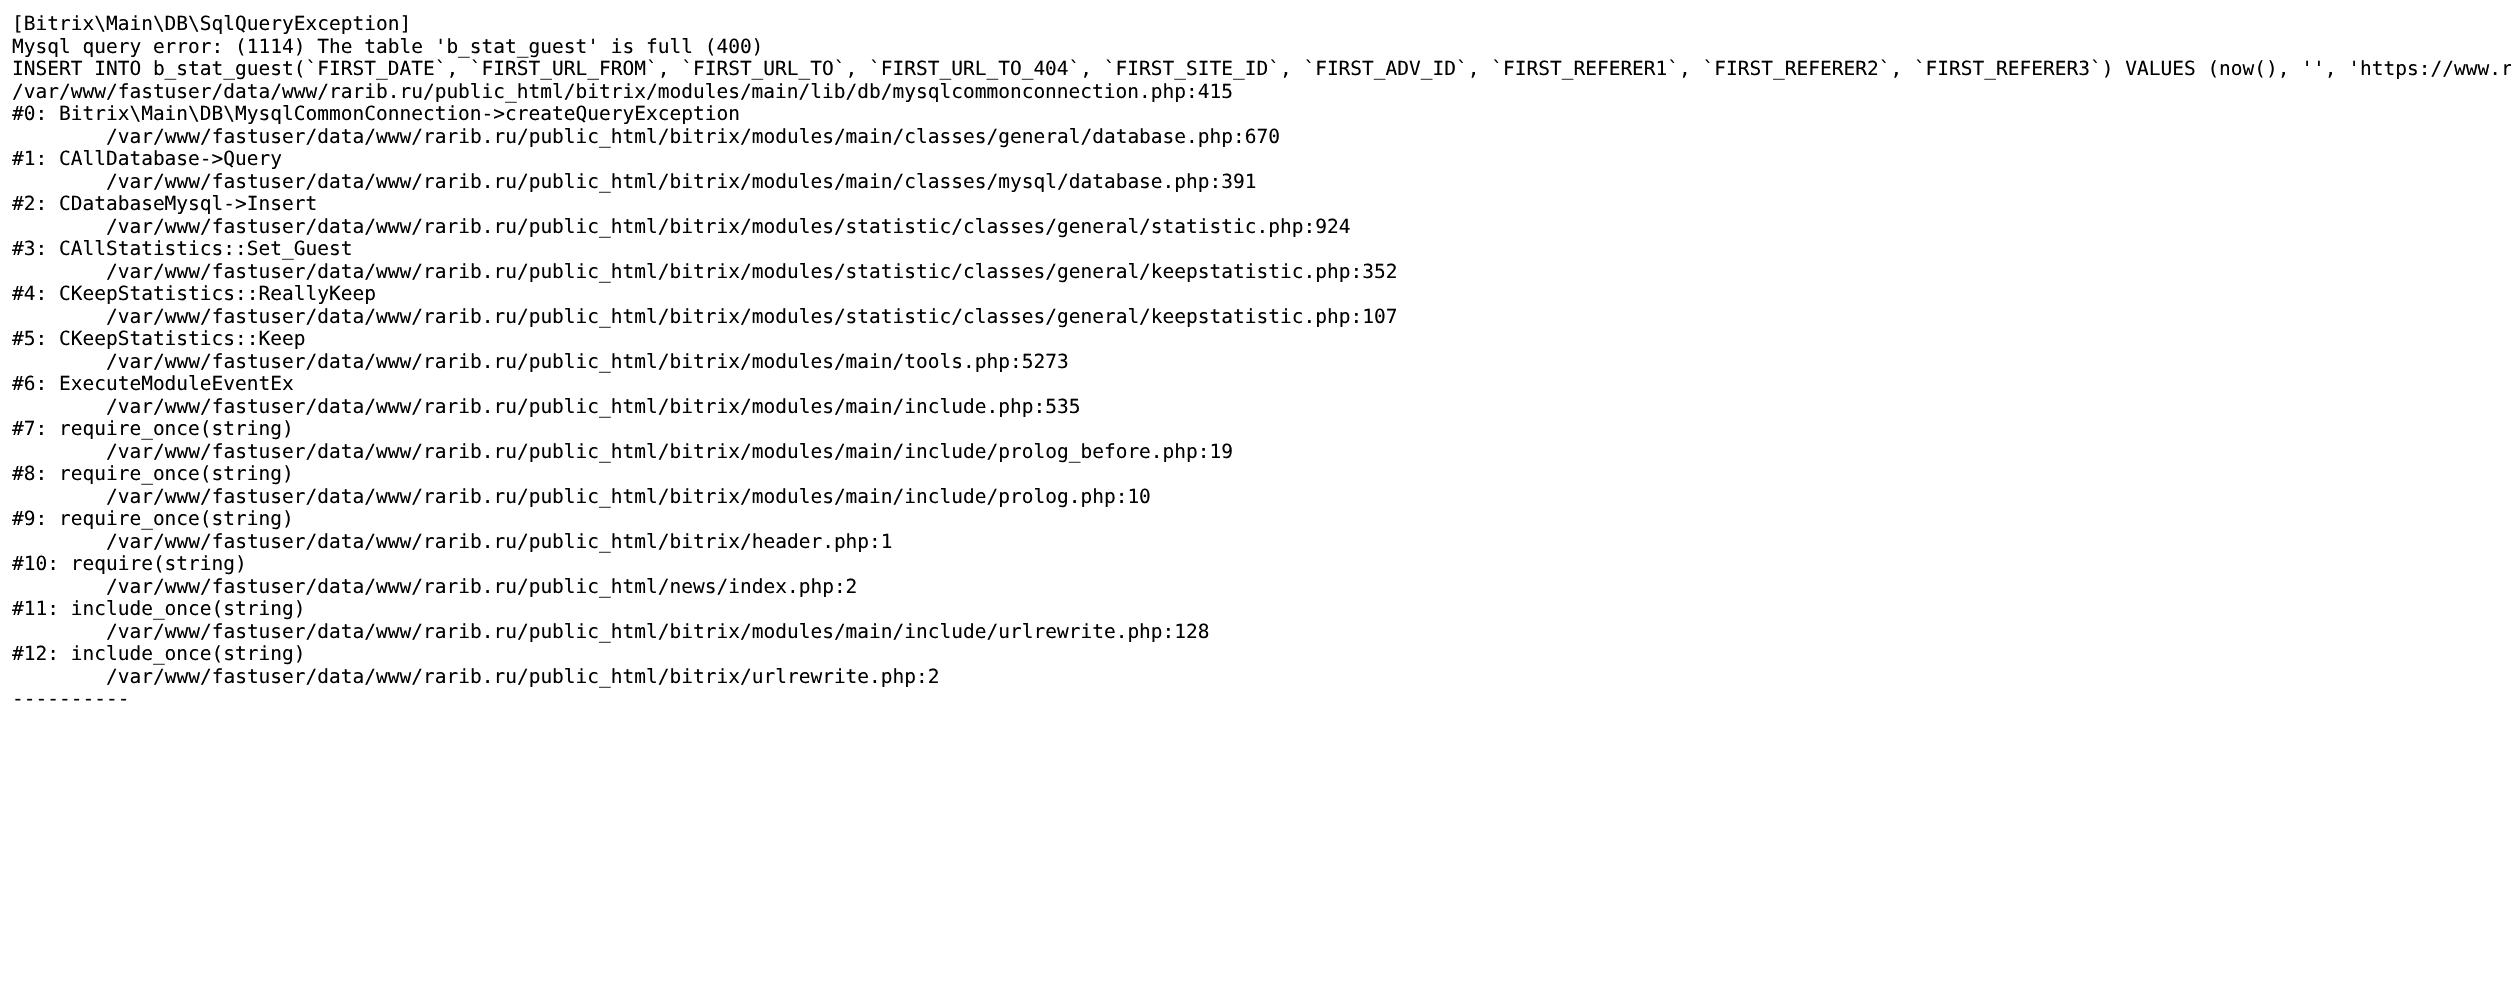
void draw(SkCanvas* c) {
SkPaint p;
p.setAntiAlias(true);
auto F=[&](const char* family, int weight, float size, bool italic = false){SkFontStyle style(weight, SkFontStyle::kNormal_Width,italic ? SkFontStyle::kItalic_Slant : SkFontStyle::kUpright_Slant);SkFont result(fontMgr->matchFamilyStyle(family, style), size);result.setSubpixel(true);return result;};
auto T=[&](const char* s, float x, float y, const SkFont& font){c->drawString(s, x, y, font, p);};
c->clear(0xffffffff);
auto f1 = F("DejaVu Sans Mono",400,19.5);
p.setColor(0xff000000);
T("[Bitrix\\Main\\DB\\SqlQueryException]",12,30,f1);
T("Mysql query error: (1114) The table 'b_stat_guest' is full (400)",12,53,f1);
T("INSERT INTO b_stat_guest(`FIRST_DATE`, `FIRST_URL_FROM`, `FIRST_URL_TO`, `FIRST_URL_TO_404`, `FIRST_SITE_ID`, `FIRST_ADV_ID`, `FIRST_REFERER1`, `FIRST_REFERER2`, `FIRST_REFERER3`) VALUES (now(), '', 'https://www.r",12,75,f1);
T("/var/www/fastuser/data/www/rarib.ru/public_html/bitrix/modules/main/lib/db/mysqlcommonconnection.php:415",12,98,f1);
T("#0: Bitrix\\Main\\DB\\MysqlCommonConnection->createQueryException",12,120,f1);
T("/var/www/fastuser/data/www/rarib.ru/public_html/bitrix/modules/main/classes/general/database.php:670",106,143,f1);
T("#1: CAllDatabase->Query",12,165,f1);
T("/var/www/fastuser/data/www/rarib.ru/public_html/bitrix/modules/main/classes/mysql/database.php:391",106,188,f1);
T("#2: CDatabaseMysql->Insert",12,210,f1);
T("/var/www/fastuser/data/www/rarib.ru/public_html/bitrix/modules/statistic/classes/general/statistic.php:924",106,233,f1);
T("#3: CAllStatistics::Set_Guest",12,255,f1);
T("/var/www/fastuser/data/www/rarib.ru/public_html/bitrix/modules/statistic/classes/general/keepstatistic.php:352",106,278,f1);
T("#4: CKeepStatistics::ReallyKeep",12,300,f1);
T("/var/www/fastuser/data/www/rarib.ru/public_html/bitrix/modules/statistic/classes/general/keepstatistic.php:107",106,323,f1);
T("#5: CKeepStatistics::Keep",12,345,f1);
T("/var/www/fastuser/data/www/rarib.ru/public_html/bitrix/modules/main/tools.php:5273",106,368,f1);
T("#6: ExecuteModuleEventEx",12,390,f1);
T("/var/www/fastuser/data/www/rarib.ru/public_html/bitrix/modules/main/include.php:535",106,413,f1);
T("#7: require_once(string)",12,435,f1);
T("/var/www/fastuser/data/www/rarib.ru/public_html/bitrix/modules/main/include/prolog_before.php:19",106,458,f1);
T("#8: require_once(string)",12,480,f1);
T("/var/www/fastuser/data/www/rarib.ru/public_html/bitrix/modules/main/include/prolog.php:10",106,503,f1);
T("#9: require_once(string)",12,525,f1);
T("/var/www/fastuser/data/www/rarib.ru/public_html/bitrix/header.php:1",106,548,f1);
T("#10: require(string)",12,570,f1);
T("/var/www/fastuser/data/www/rarib.ru/public_html/news/index.php:2",106,593,f1);
T("#11: include_once(string)",12,615,f1);
T("/var/www/fastuser/data/www/rarib.ru/public_html/bitrix/modules/main/include/urlrewrite.php:128",106,638,f1);
T("#12: include_once(string)",12,660,f1);
T("/var/www/fastuser/data/www/rarib.ru/public_html/bitrix/urlrewrite.php:2",106,683,f1);
T("----------",12,705,f1);
}
